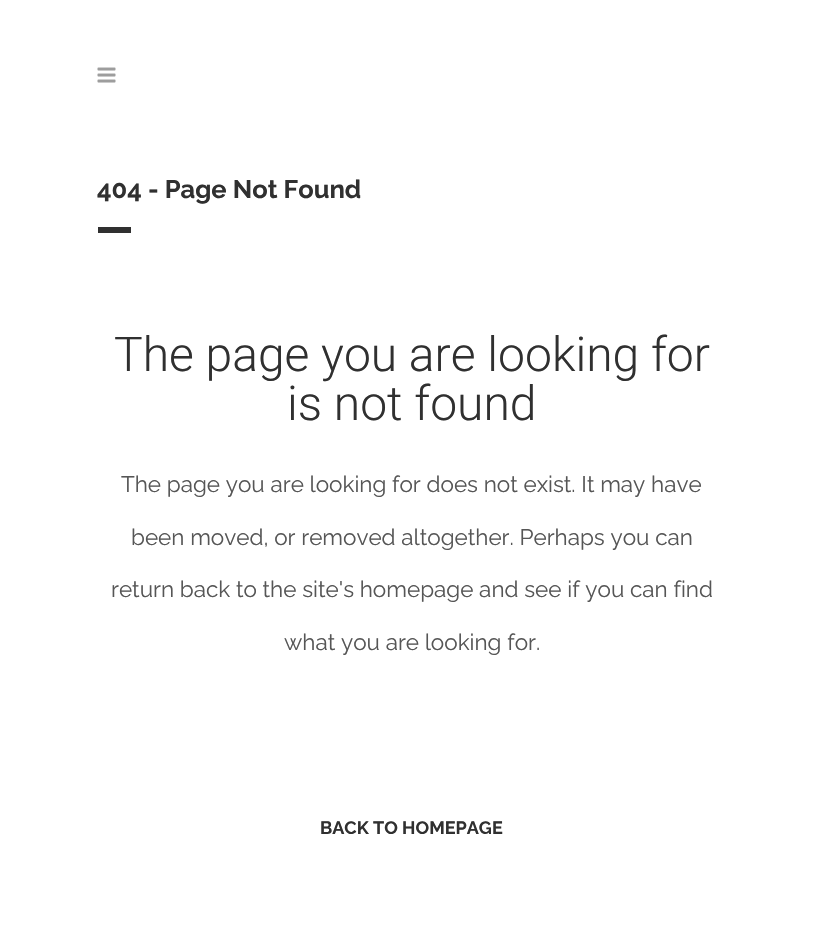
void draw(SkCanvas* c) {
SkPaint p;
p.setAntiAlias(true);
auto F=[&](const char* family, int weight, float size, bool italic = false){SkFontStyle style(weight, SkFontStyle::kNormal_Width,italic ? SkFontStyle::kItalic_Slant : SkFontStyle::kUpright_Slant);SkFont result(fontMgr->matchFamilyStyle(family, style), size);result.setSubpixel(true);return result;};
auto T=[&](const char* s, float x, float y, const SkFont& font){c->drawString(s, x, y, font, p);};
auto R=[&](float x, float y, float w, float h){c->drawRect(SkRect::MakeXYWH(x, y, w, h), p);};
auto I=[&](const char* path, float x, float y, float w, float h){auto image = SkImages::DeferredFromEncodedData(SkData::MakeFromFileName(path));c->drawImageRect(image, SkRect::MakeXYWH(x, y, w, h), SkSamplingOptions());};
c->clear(0xffffffff);
I("1.png",97,67,19,16);
auto f1 = F("Raleway",700,25.5);
p.setColor(0xff303030);
T("404 - Page Not Found",97,198,f1);
R(98,227,33,6);
auto f2 = F("Roboto",300,48);
T("The page you are looking for",114,371,f2);
T("is not found",287,420,f2);
auto f3 = F("Raleway",400,22.5);
p.setColor(0xff565656);
T("The page you are looking for does not exist. It may have",121,492,f3);
T("been moved, or removed altogether. Perhaps you can",131,545,f3);
T("return back to the site's homepage and see if you can find",111,597,f3);
T("what you are looking for.",284,650,f3);
auto f4 = F("Raleway",700,18);
p.setColor(0xff303030);
T("BACK TO HOMEPAGE",320,834,f4);
}
